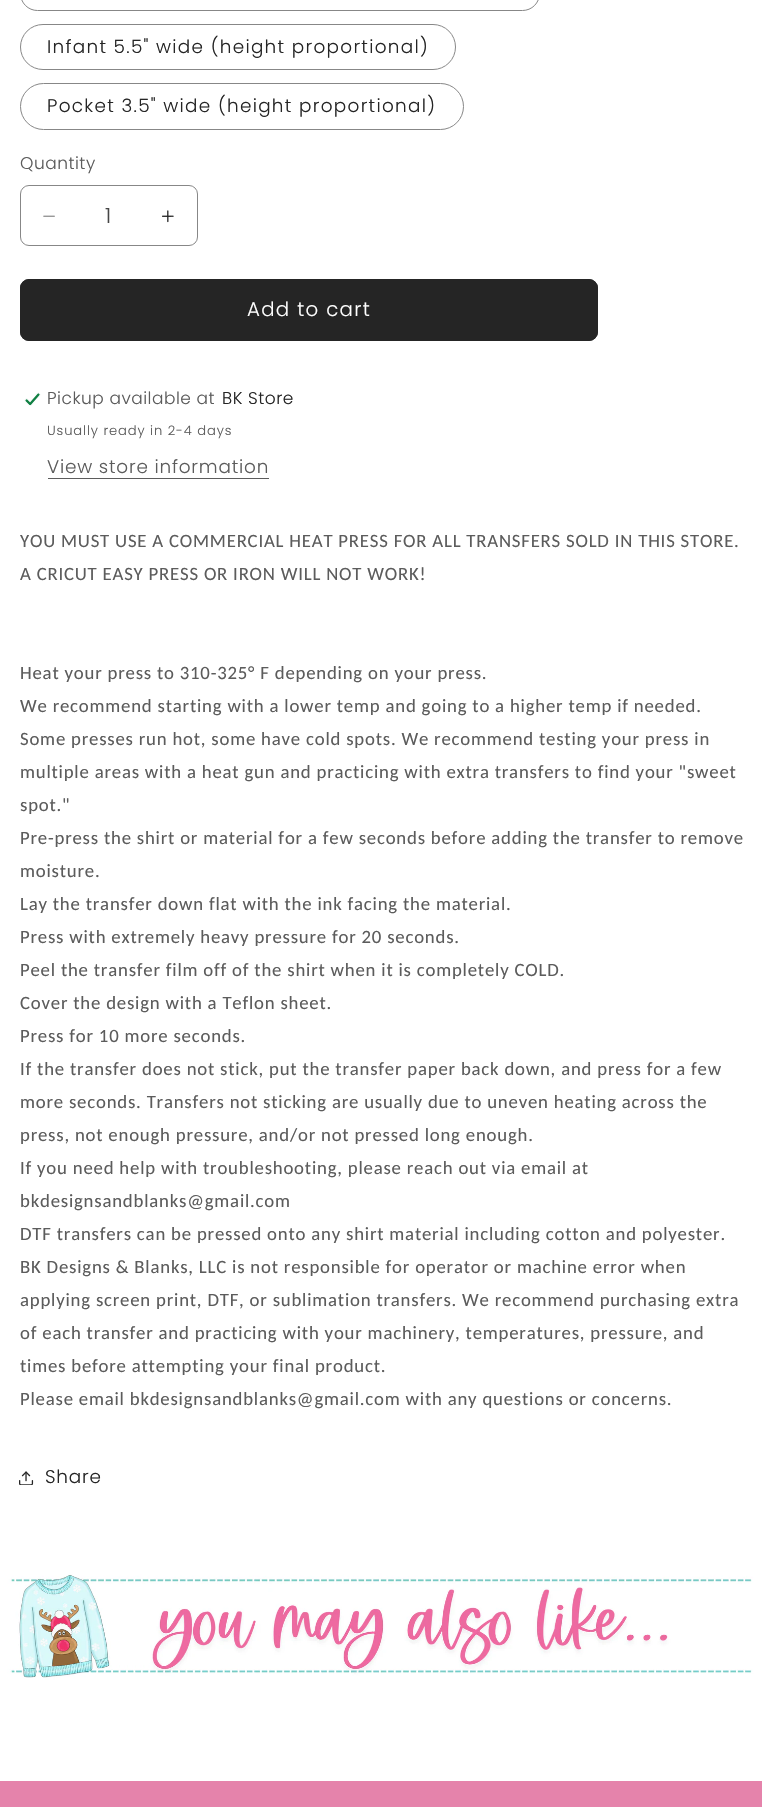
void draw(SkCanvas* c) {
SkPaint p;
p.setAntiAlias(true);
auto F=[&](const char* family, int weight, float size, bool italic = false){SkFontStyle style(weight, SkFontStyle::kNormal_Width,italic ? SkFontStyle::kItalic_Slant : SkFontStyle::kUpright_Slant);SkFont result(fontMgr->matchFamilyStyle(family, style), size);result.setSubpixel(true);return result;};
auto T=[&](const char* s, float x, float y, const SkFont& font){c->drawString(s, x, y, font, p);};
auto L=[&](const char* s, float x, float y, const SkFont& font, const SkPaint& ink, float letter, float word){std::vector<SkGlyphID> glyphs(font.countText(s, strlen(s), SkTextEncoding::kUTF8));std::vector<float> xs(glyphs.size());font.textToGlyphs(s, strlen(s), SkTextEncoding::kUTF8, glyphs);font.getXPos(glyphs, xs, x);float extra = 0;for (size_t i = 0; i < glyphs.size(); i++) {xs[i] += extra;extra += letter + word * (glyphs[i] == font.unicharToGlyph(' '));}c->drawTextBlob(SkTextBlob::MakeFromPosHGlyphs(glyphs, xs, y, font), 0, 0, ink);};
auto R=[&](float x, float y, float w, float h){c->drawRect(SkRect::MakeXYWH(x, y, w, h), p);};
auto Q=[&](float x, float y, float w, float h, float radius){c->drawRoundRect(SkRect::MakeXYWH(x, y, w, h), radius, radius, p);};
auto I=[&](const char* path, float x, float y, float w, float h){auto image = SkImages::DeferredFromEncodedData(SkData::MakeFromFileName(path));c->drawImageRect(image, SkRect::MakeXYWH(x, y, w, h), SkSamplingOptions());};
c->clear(0xffffffff);
p.setStroke(true);
p.setStrokeWidth(1);
p.setColor(0xff878787);
c->drawRoundRect(SkRect::MakeXYWH(20.5,-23.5,519,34),22.5,22.5,p);
c->drawRoundRect(SkRect::MakeXYWH(20.5,24.5,435,45),22.5,22.5,p);
auto f1 = F("Poppins",300,18.4);
p.setStroke(false);
p.setColor(0xff252525);
L("Infant 5.5\" wide (height proportional)",47,53,f1,p,1.3,0);
p.setStroke(true);
p.setColor(0xff878787);
c->drawRoundRect(SkRect::MakeXYWH(20.5,83.5,443,46),23,23,p);
p.setStroke(false);
p.setColor(0xff252525);
L("Pocket 3.5\" wide (height proportional)",47,112,f1,p,1.3,0);
auto f2 = F("Poppins",300,17);
p.setColor(0xff5c5c5c);
L("Quantity",20,169,f2,p,.5,0);
I("1.png",43,215,12,2);
I("2.png",162,210,12,13);
p.setStroke(true);
p.setColor(0xff878787);
c->drawRoundRect(SkRect::MakeXYWH(20.5,185.5,177,60),8.5,8.5,p);
auto f3 = F("Poppins",300,21);
p.setStroke(false);
p.setColor(0xff464646);
T("1",105,223,f3);
p.setColor(0xff252525);
Q(20,279,578,62,9);
p.setStroke(true);
c->drawRoundRect(SkRect::MakeXYWH(20.5,279.5,577,61),8.5,8.5,p);
auto f4 = F("Poppins",300,19.75);
p.setStroke(false);
p.setColor(0xffffffff);
L("Add to cart",247,316,f4,p,1.3,0);
I("3.png",24,392,17,14);
p.setColor(0xff5c5c5c);
L("Pickup available at",47,404,f2,p,.5,0);
p.setColor(0xff252525);
L("BK Store",222,404,f2,p,.5,0);
auto f5 = F("Poppins",300,13.1);
p.setColor(0xff5c5c5c);
L("Usually ready in 2-4 days",47,435,f5,p,.9,0);
L("View store information",47,473,f1,p,.8,0);
R(48,478,221,1);
auto f6 = F("Carlito",400,18.75);
L("YOU MUST USE A COMMERCIAL HEAT PRESS FOR ALL TRANSFERS SOLD IN THIS STORE.",20,547,f6,p,.8,0);
L("A CRICUT EASY PRESS OR IRON WILL NOT WORK!",20,580,f6,p,.8,0);
L("Heat your press to 310-325° F depending on your press.",20,679,f6,p,.8,0);
L("We recommend starting with a lower temp and going to a higher temp if needed.",20,712,f6,p,.8,0);
L("Some presses run hot, some have cold spots. We recommend testing your press in",20,745,f6,p,.8,0);
L("multiple areas with a heat gun and practicing with extra transfers to find your \"sweet",20,778,f6,p,.8,0);
L("spot.\"",20,811,f6,p,.8,0);
L("Pre-press the shirt or material for a few seconds before adding the transfer to remove",20,844,f6,p,.8,0);
L("moisture.",20,877,f6,p,.8,0);
L("Lay the transfer down flat with the ink facing the material.",20,910,f6,p,.8,0);
L("Press with extremely heavy pressure for 20 seconds.",20,943,f6,p,.8,0);
L("Peel the transfer film off of the shirt when it is completely COLD.",20,976,f6,p,.8,0);
L("Cover the design with a Teflon sheet.",20,1009,f6,p,.8,0);
L("Press for 10 more seconds.",20,1042,f6,p,.8,0);
L("If the transfer does not stick, put the transfer paper back down, and press for a few",20,1075,f6,p,.8,0);
L("more seconds. Transfers not sticking are usually due to uneven heating across the",20,1108,f6,p,.8,0);
L("press, not enough pressure, and/or not pressed long enough.",20,1141,f6,p,.8,0);
L("If you need help with troubleshooting, please reach out via email at",20,1174,f6,p,.8,0);
L("bkdesignsandblanks@gmail.com",20,1207,f6,p,.8,0);
L("DTF transfers can be pressed onto any shirt material including cotton and polyester.",20,1240,f6,p,.8,0);
L("BK Designs & Blanks, LLC is not responsible for operator or machine error when",20,1273,f6,p,.8,0);
L("applying screen print, DTF, or sublimation transfers. We recommend purchasing extra",20,1306,f6,p,.8,0);
L("of each transfer and practicing with your machinery, temperatures, pressure, and",20,1339,f6,p,.8,0);
L("times before attempting your final product.",20,1372,f6,p,.8,0);
L("Please email bkdesignsandblanks@gmail.com with any questions or concerns.",20,1405,f6,p,.8,0);
I("4.png",19,1471,15,14);
p.setColor(0xff252525);
L("Share",45,1483,f1,p,.8,0);
I("5.png",0,1568,762,116);
p.setColor(0xffe583ab);
R(0,1781,762,26);
}
